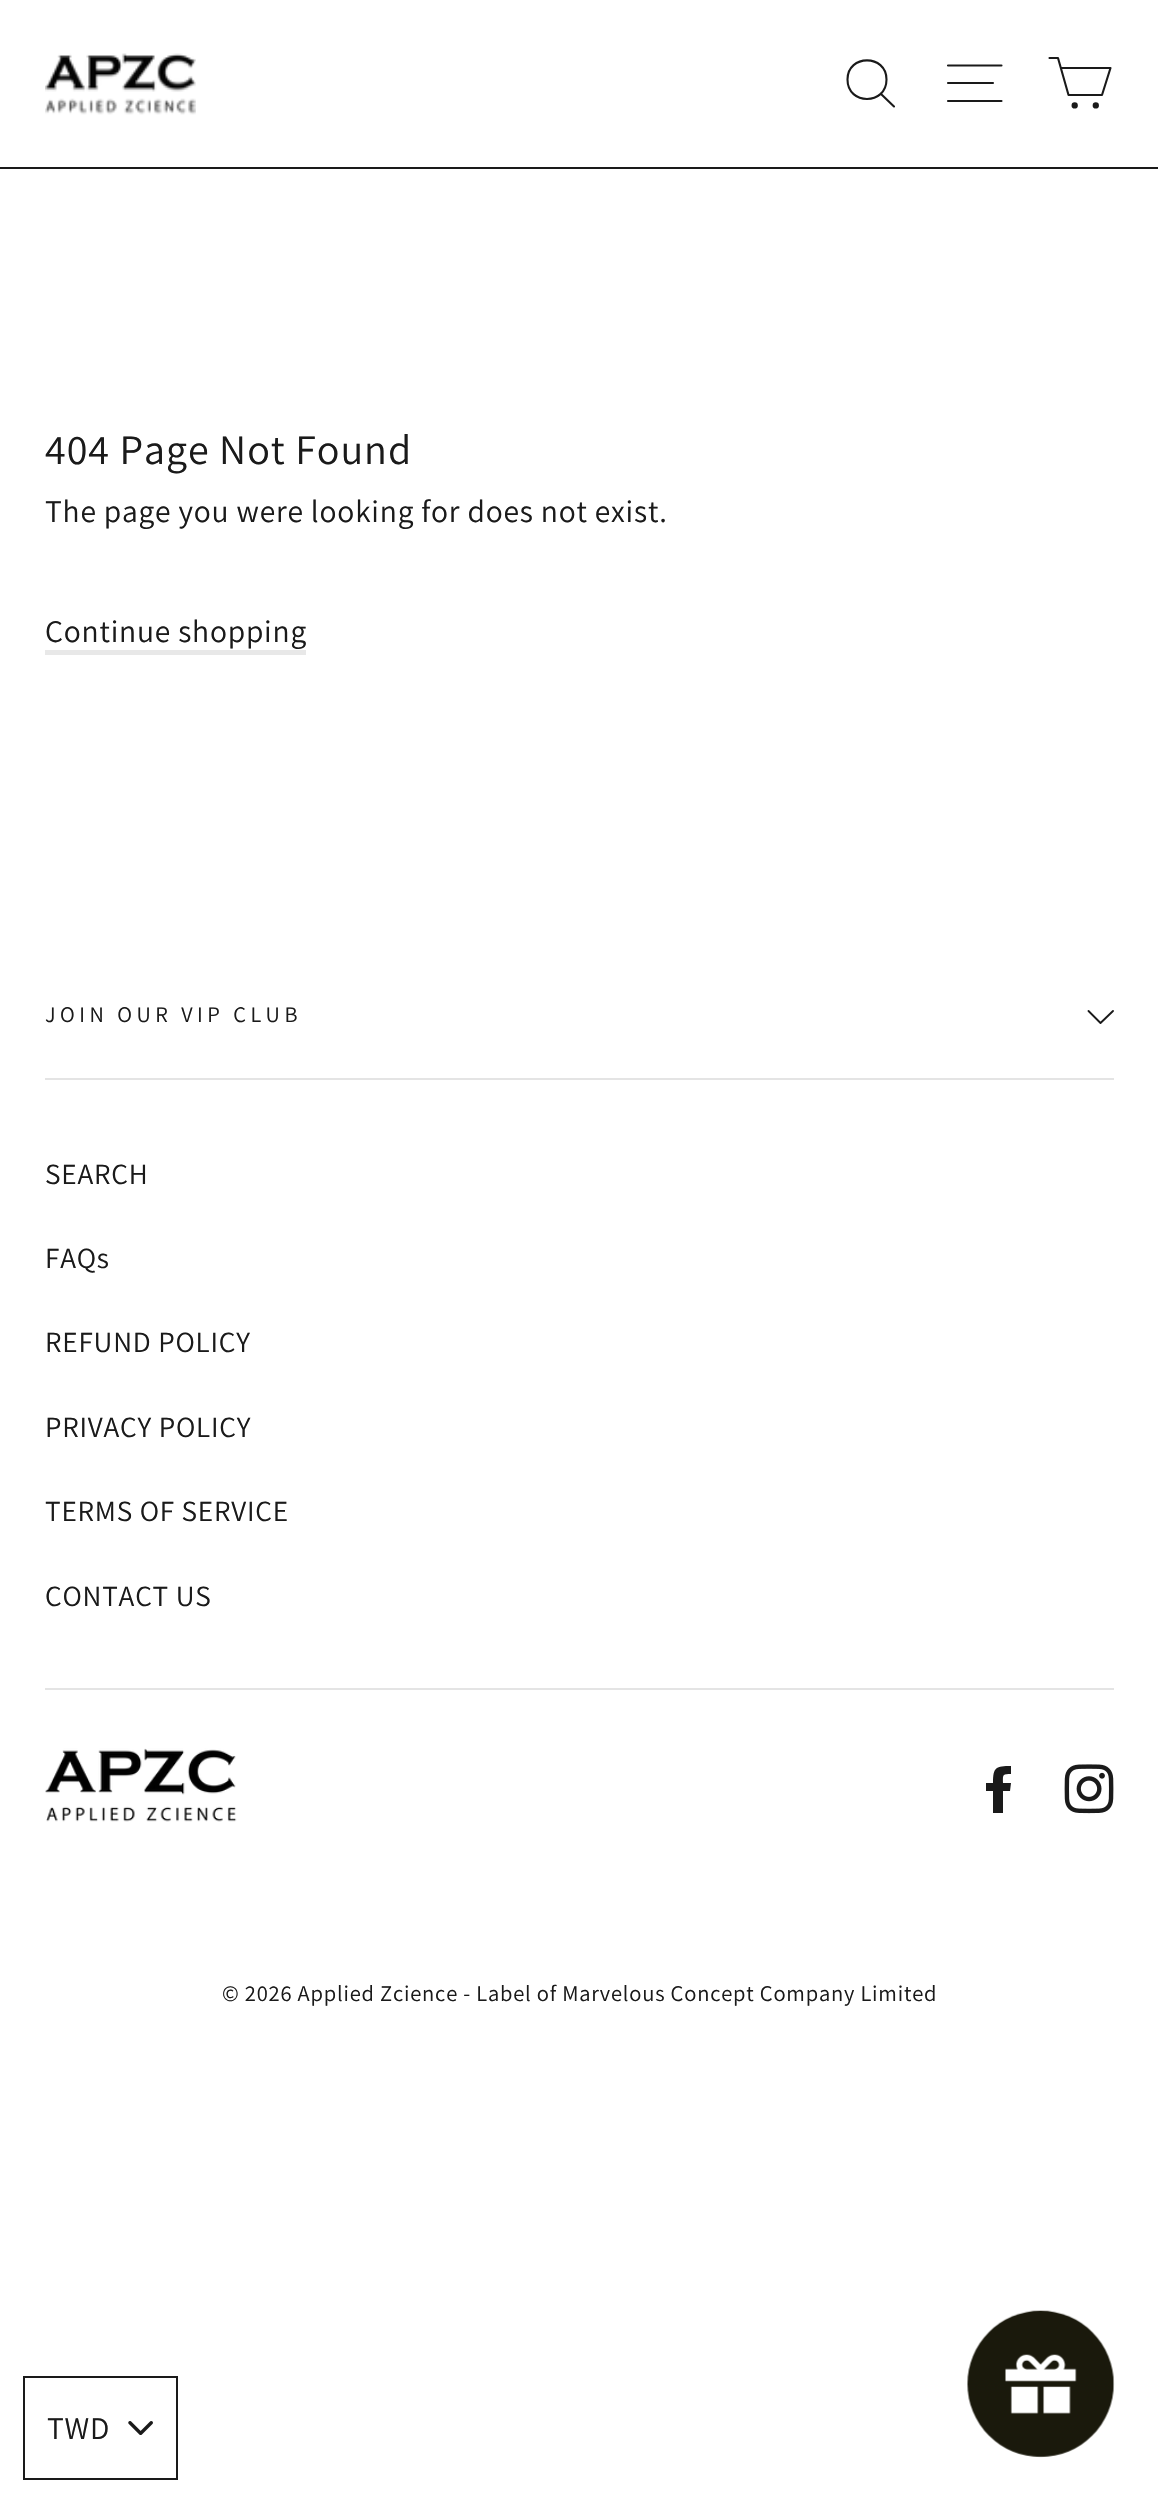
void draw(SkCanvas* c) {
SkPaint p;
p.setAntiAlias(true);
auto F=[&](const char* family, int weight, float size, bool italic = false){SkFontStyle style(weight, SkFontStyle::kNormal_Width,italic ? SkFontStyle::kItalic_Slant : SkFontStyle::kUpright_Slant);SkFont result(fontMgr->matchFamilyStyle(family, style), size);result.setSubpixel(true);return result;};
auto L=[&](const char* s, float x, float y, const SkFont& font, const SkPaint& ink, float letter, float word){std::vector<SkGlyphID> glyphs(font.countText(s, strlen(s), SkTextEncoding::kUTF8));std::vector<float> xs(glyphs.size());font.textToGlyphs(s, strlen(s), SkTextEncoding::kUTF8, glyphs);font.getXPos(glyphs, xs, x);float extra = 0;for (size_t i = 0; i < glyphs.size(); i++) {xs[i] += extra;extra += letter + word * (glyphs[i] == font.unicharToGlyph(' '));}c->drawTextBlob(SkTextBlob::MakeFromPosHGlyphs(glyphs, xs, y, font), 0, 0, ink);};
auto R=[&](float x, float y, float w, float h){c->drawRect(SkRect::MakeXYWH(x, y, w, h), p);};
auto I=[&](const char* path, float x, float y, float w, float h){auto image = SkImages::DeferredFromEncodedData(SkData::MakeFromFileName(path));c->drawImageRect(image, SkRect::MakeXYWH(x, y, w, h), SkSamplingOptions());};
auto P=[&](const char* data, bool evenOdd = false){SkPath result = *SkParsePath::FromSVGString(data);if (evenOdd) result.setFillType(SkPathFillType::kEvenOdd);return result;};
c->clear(0xffffffff);
p.setColor(0xff1a1a1a);
R(0,167,1158,2);
I("1.png",45,53,151,62);
p.setStroke(true);
p.setStrokeWidth(2.1);
p.setStrokeCap(SkPaint::kRound_Cap);
p.setStrokeJoin(SkPaint::kRound_Join);
c->drawPath(P("M886.5 79.5c0 26-39 26-39 0c0-25.5 39-25.5 39 0zm7.5 27l-13-12.5"),p);
c->drawPath(P("M948 65.5h53.5m-53.5 17.5h45m-45 18h53.5"),p);
c->drawPath(P("M1061 68h49.5l-8.5 27h-33.5l-10.5-37h-8.5"),p);
p.setStroke(false);
c->drawCircle(1074.7,105.4,2.1,p);
p.setStroke(true);
p.setStrokeCap(SkPaint::kButt_Cap);
p.setStrokeJoin(SkPaint::kMiter_Join);
c->drawCircle(1074.7,105.4,2.1,p);
p.setStroke(false);
c->drawCircle(1095.8,105.4,2.1,p);
p.setStroke(true);
c->drawCircle(1095.8,105.4,2.1,p);
auto f1 = F("Assistant",400,42);
p.setStroke(false);
L("404 Page Not Found",45,464,f1,p,1,0);
auto f2 = F("Assistant",400,31.5);
L("The page you were looking for does not exist.",45,522,f2,p,.8,0);
L("Continue shopping",45,642,f2,p,.8,0);
p.setColor(0xffe8e8e8);
R(45,650,261,5);
auto f3 = F("Assistant",400,22.25);
p.setColor(0xff1a1a1a);
L("JOIN OUR VIP CLUB",45,1022,f3,p,4.5,0);
p.setStroke(true);
p.setStrokeWidth(1.9);
p.setStrokeCap(SkPaint::kRound_Cap);
p.setStrokeJoin(SkPaint::kRound_Join);
c->drawPath(P("M1088.5 1011l12 12l12.5-12"),p);
p.setStroke(false);
p.setColor(0xffe4e4e4);
R(45,1078,1069,2);
auto f4 = F("Assistant",400,29.25);
p.setColor(0xff1a1a1a);
L("SEARCH",45,1184,f4,p,.8,0);
L("FAQs",45,1268,f4,p,.8,0);
L("REFUND POLICY",45,1352,f4,p,.8,0);
L("PRIVACY POLICY",45,1437,f4,p,.8,0);
L("TERMS OF SERVICE",45,1521,f4,p,.8,0);
L("CONTACT US",45,1606,f4,p,.8,0);
p.setColor(0xffe4e4e4);
R(45,1688,1069,2);
I("2.png",45,1748,192,74);
p.setColor(0xff1a1a1a);
c->drawPath(P("M1003 1813v-22h7l1-8h-8c0-8-1-9 8-9v-8c-15 0-18 1-18 17h-7v8h7v22z"),p);
I("3.png",1064,1764,50,50);
auto f5 = F("Assistant",400,22.5);
L("© 2026 Applied Zcience - Label of Marvelous Concept Company Limited",222,2001,f5,p,.8,0);
I("4.png",128,2421,25,14);
p.setStroke(true);
p.setStrokeWidth(2);
p.setStrokeCap(SkPaint::kButt_Cap);
p.setStrokeJoin(SkPaint::kMiter_Join);
c->drawRect(SkRect::MakeXYWH(24,2377,153,102),p);
p.setStroke(false);
L("TWD",47,2439,f2,p,.8,0);
I("5.png",967,2310,148,148);
}
